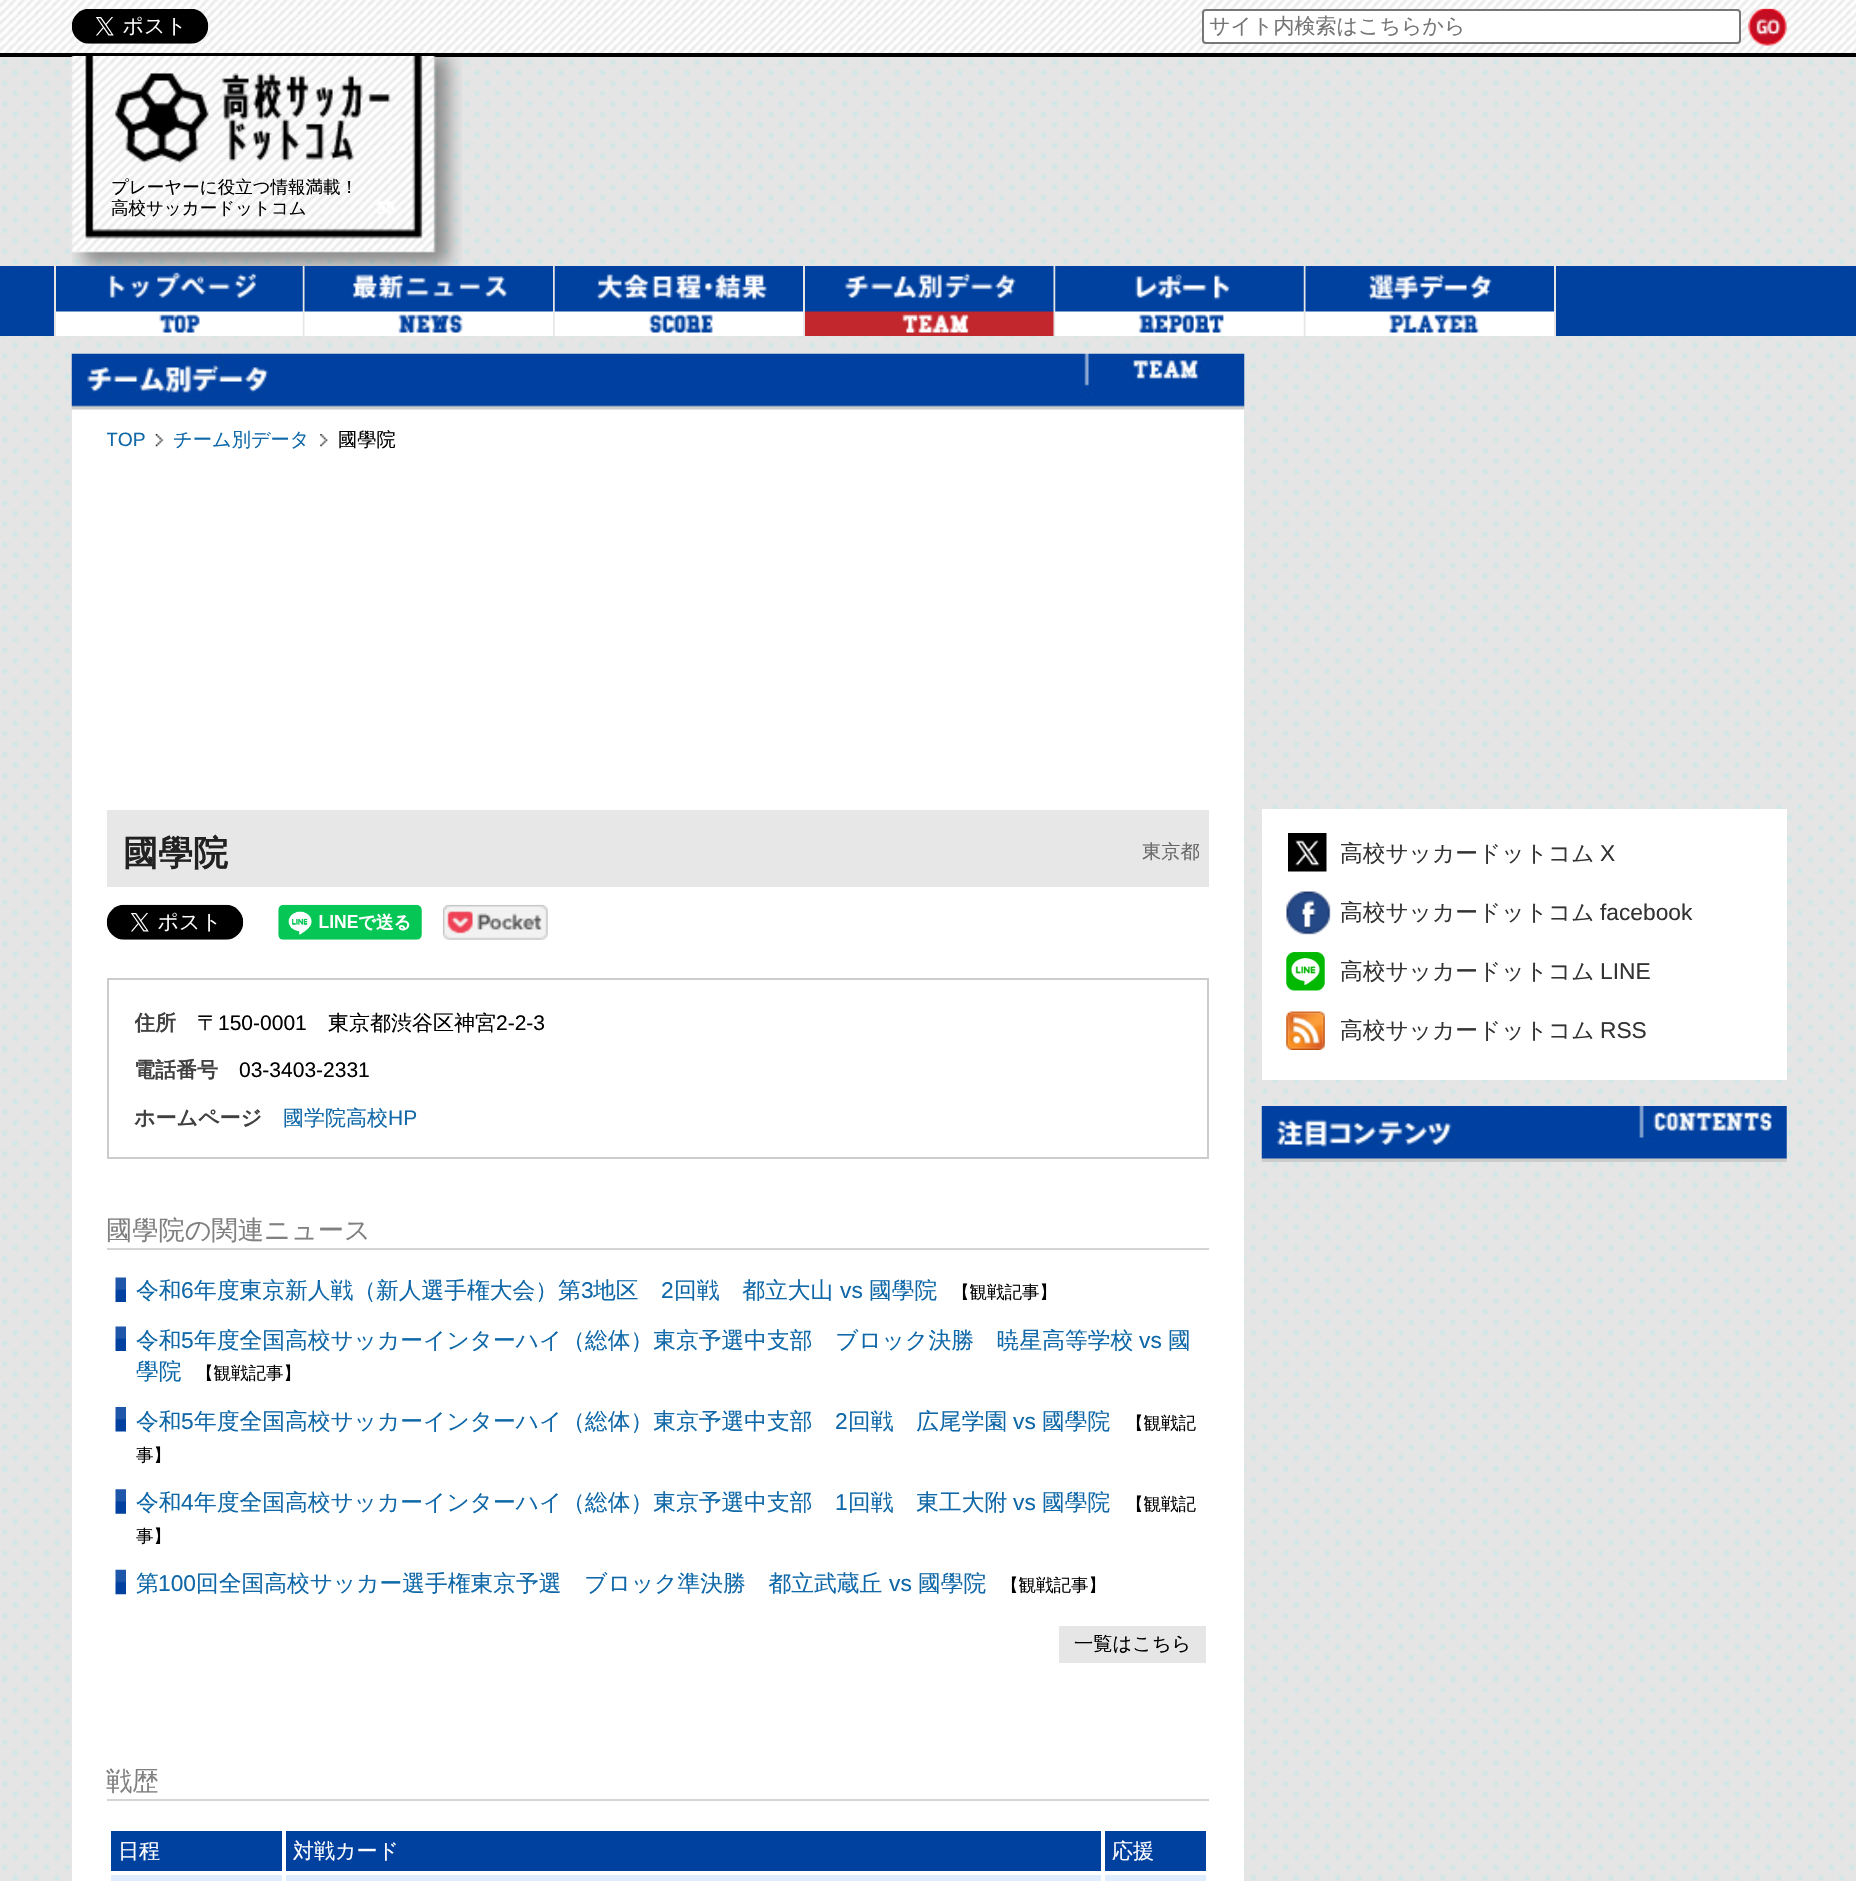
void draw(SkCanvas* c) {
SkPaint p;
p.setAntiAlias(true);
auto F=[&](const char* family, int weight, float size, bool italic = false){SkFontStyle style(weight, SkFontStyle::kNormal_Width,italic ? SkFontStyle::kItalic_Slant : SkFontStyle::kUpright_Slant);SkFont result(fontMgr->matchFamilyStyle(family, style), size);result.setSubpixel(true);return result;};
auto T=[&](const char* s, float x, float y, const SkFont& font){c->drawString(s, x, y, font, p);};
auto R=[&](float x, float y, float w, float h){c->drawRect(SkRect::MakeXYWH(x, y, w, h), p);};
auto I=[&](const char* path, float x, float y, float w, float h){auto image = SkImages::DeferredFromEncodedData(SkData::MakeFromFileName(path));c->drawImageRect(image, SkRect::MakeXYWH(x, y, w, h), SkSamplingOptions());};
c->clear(0xffe5e5e5);
I("1.png",1,59,1854,1822);
I("2.png",0,0,1856,53);
p.setColor(0xff000000);
R(0,53,1856,4);
I("3.png",71,9,138,35);
p.setColor(0xffffffff);
c->drawRoundRect(SkRect::MakeXYWH(1203,10,537,33),3,3,p);
p.setStroke(true);
p.setStrokeWidth(2);
p.setColor(0xff767676);
c->drawRoundRect(SkRect::MakeXYWH(1203,10,537,33),3,3,p);
auto f1 = F("WenQuanYi Zen Hei",500,21);
p.setStroke(false);
p.setColor(0xff757575);
T("サイト内検索はこちらから",1209,33,f1);
I("4.png",1748,8,39,38);
I("5.png",71,56,391,210);
I("6.png",115,73,276,90);
auto f2 = F("WenQuanYi Zen Hei",500,17.5);
p.setColor(0xff000000);
T("プレーヤーに役立つ情報満載！",111,193,f2);
T("高校サッカードットコム",111,214,f2);
p.setColor(0xff0041a0);
R(0,266,1856,70);
p.setColor(0xffe6e6e6);
R(54,266,251,70);
I("7.png",56,266,247,70);
I("8.png",304,266,249,70);
R(553,266,2,70);
I("9.png",554,266,249,70);
R(803,266,753,70);
I("10.png",805,266,249,70);
I("11.png",1055,266,249,70);
I("12.png",1305,266,249,70);
p.setColor(0xffffffff);
R(72,409,1172,1472);
I("13.png",71,353,1174,57);
I("14.png",155,434,9,13);
c->save();
c->clipRect(SkRect::MakeXYWH(107,427,1102,25));
auto f3 = F("Liberation Sans",400,19.25);
p.setColor(0xff1068a8);
T("TOP",106,446,f3);
c->restore();
I("15.png",320,434,8,13);
auto f4 = F("WenQuanYi Zen Hei",500,19.25);
T("チーム別データ",173,446,f4);
p.setColor(0xff000000);
T("國學院",338,446,f4);
p.setColor(0xffe7e7e7);
R(107,810,1102,77);
auto f5 = F("WenQuanYi Zen Hei",700,35);
p.setColor(0xff222222);
T("國學院",123,865,f5);
p.setColor(0xff696969);
T("東京都",1142,858,f4);
I("16.png",106,904,138,36);
I("17.png",278,904,144,36);
I("18.png",442,904,106,36);
p.setStroke(true);
p.setColor(0xffcccccc);
c->drawRect(SkRect::MakeXYWH(108,979,1100,179),p);
c->save();
c->clipRect(SkRect::MakeXYWH(135,1006,1046,130));
auto f6 = F("WenQuanYi Zen Hei",700,21);
p.setStroke(false);
p.setColor(0xff404040);
T("住所",134,1030,f6);
c->restore();
p.setColor(0xff000000);
T("〒",197,1030,f1);
auto f7 = F("Liberation Sans",400,21);
T("150-0001",218,1030,f7);
T("東京都渋谷区神宮",328,1030,f1);
T("2-2-3",496,1030,f7);
p.setColor(0xff404040);
T("電話番号",134,1077,f6);
p.setColor(0xff000000);
T("03-3403-2331",239,1077,f7);
p.setColor(0xff404040);
T("ホームページ",134,1125,f6);
p.setColor(0xff1068a8);
T("國学院高校",283,1125,f1);
T("HP",388,1125,f7);
p.setColor(0xffd4d4d4);
R(107,1248,1102,2);
auto f8 = F("WenQuanYi Zen Hei",500,26.25);
p.setColor(0xff808080);
T("國學院の関連ニュース",106,1239,f8);
I("19.png",115,1277,11,25);
auto f9 = F("WenQuanYi Zen Hei",500,22.75);
p.setColor(0xff1068a8);
T("令和",136,1298,f9);
auto f10 = F("Liberation Sans",400,22.75);
T("6",181,1298,f10);
T("年度東京新人戦（新人選手権大会）第",194,1298,f9);
T("3",581,1298,f10);
T("地区",593,1298,f9);
T("2",661,1298,f10);
T("回戦　都立大山",674,1298,f9);
T("vs",840,1298,f10);
T("國學院",869,1298,f9);
p.setColor(0xff000000);
T("【観戦記事】",952,1298,f2);
I("19.png",115,1326,11,25);
p.setColor(0xff1068a8);
T("令和",136,1348,f9);
T("5",181,1348,f10);
T("年度全国高校サッカーインターハイ（総体）東京予選中支部　ブロック決勝　暁星高等学校",194,1348,f9);
T("vs",1139,1348,f10);
T("國",1168,1348,f9);
T("學院",136,1379,f9);
p.setColor(0xff000000);
T("【観戦記事】",196,1379,f2);
I("20.png",115,1407,11,25);
p.setColor(0xff1068a8);
T("令和",136,1429,f9);
T("5",181,1429,f10);
T("年度全国高校サッカーインターハイ（総体）東京予選中支部",194,1429,f9);
T("2",835,1429,f10);
T("回戦　広尾学園",848,1429,f9);
T("vs",1013,1429,f10);
T("國學院",1042,1429,f9);
p.setColor(0xff000000);
T("【観戦記",1126,1429,f2);
T("事】",136,1461,f2);
I("21.png",115,1489,11,25);
p.setColor(0xff1068a8);
T("令和",136,1510,f9);
T("4",181,1510,f10);
T("年度全国高校サッカーインターハイ（総体）東京予選中支部",194,1510,f9);
T("1",835,1510,f10);
T("回戦　東工大附",848,1510,f9);
T("vs",1013,1510,f10);
T("國學院",1042,1510,f9);
p.setColor(0xff000000);
T("【観戦記",1126,1510,f2);
T("事】",136,1542,f2);
I("22.png",115,1569,11,26);
p.setColor(0xff1068a8);
T("第",136,1591,f9);
T("100",158,1591,f10);
T("回全国高校サッカー選手権東京予選　ブロック準決勝　都立武蔵丘",196,1591,f9);
T("vs",889,1591,f10);
T("國學院",918,1591,f9);
p.setColor(0xff000000);
T("【観戦記事】",1001,1591,f2);
p.setColor(0xffe6e6e6);
R(1059,1626,147,37);
p.setColor(0xff000000);
T("一覧はこちら",1074,1650,f4);
p.setColor(0xffd4d4d4);
R(107,1799,1102,2);
p.setColor(0xff808080);
T("戦歴",106,1790,f8);
p.setColor(0xff0041a0);
R(111,1831,171,40);
p.setColor(0xffffffff);
T("日程",118,1858,f1);
p.setColor(0xff0041a0);
R(286,1831,815,40);
p.setColor(0xffffffff);
T("対戦カード",293,1858,f1);
p.setColor(0xff0041a0);
R(1105,1831,101,40);
p.setColor(0xffffffff);
T("応援",1112,1858,f1);
p.setColor(0xffe0edff);
R(109,1875,1099,6);
p.setColor(0xffffffff);
R(109,1871,2,10);
R(282,1871,4,10);
R(1206,1871,2,10);
R(1101,1871,4,10);
R(1262,809,525,271);
I("23.png",1288,833,39,39);
p.setColor(0xff333333);
T("高校サッカードットコム",1340,861,f9);
T("X",1600,861,f10);
I("24.png",1286,891,45,44);
T("高校サッカードットコム",1340,920,f9);
T("facebook",1600,920,f10);
I("25.png",1286,952,39,39);
T("高校サッカードットコム",1340,979,f9);
T("LINE",1600,979,f10);
I("26.png",1286,1011,39,39);
T("高校サッカードットコム",1340,1038,f9);
T("RSS",1600,1038,f10);
I("27.png",1261,1106,526,56);
}
